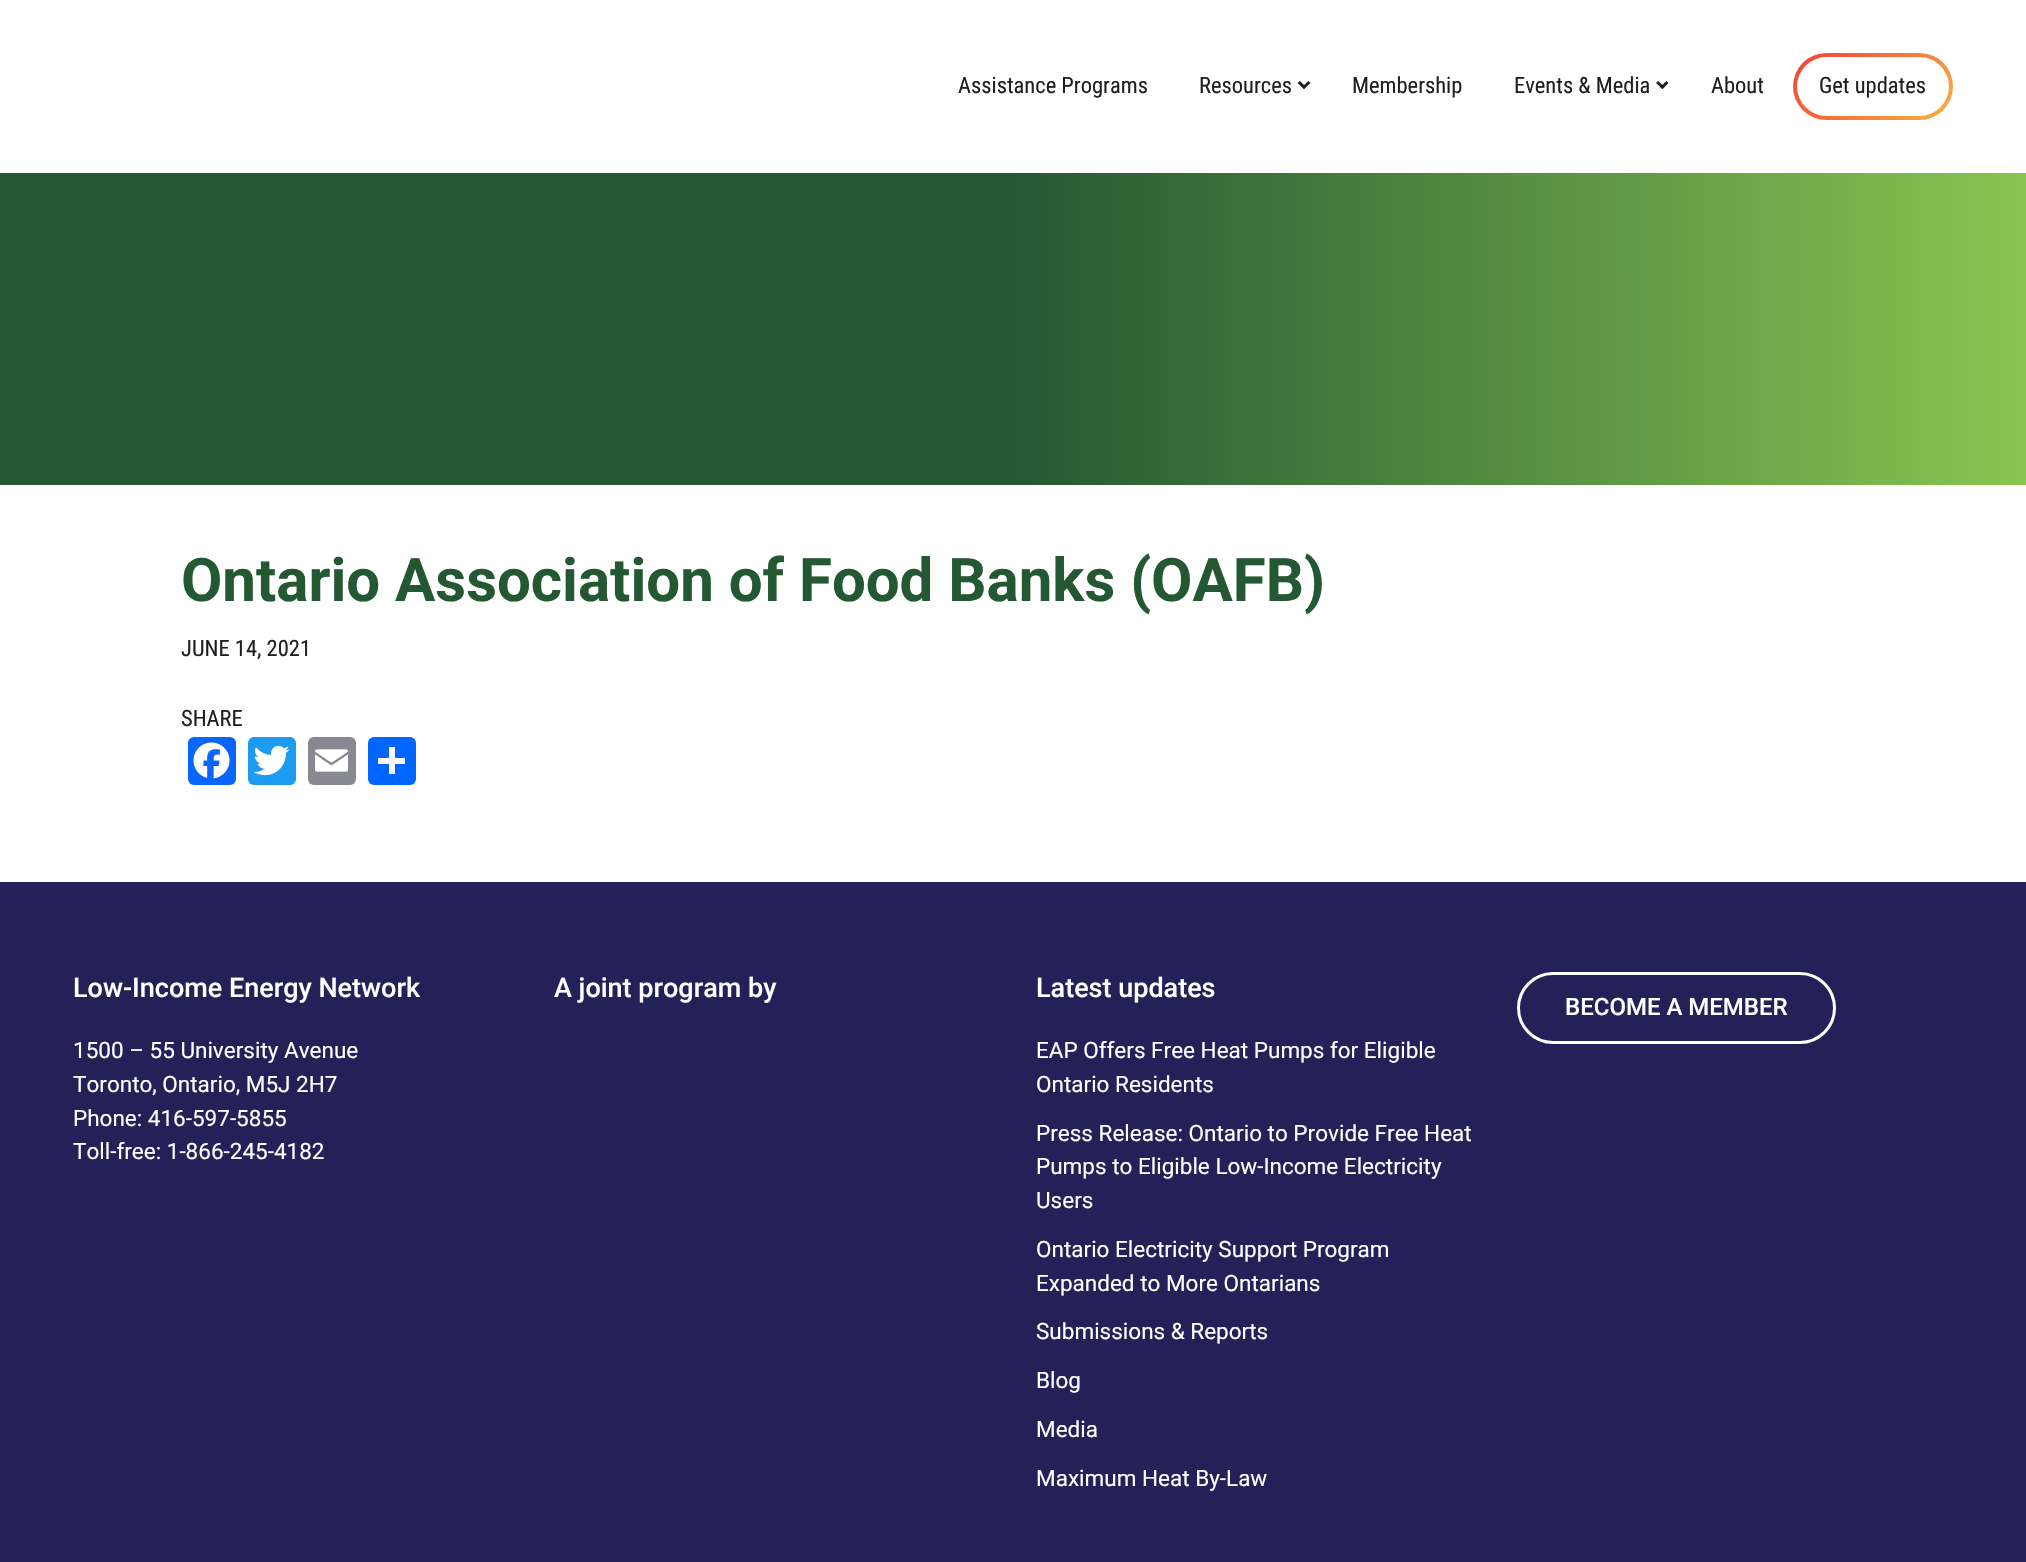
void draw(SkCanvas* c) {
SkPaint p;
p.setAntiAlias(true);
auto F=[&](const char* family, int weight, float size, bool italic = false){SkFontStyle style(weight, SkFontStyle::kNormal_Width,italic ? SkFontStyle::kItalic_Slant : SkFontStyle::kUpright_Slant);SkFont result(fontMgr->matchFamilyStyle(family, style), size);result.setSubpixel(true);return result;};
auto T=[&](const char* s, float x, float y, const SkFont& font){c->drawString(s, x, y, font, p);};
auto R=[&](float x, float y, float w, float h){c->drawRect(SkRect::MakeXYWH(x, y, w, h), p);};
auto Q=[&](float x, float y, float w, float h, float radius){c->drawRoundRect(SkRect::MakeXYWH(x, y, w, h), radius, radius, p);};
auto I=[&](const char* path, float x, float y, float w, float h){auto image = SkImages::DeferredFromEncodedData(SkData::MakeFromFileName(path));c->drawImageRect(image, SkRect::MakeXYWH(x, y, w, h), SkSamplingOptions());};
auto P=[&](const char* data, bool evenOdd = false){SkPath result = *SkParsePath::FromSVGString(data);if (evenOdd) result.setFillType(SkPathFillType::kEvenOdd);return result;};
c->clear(0xffffffff);
auto f1 = F("Roboto Condensed",400,22.5);
p.setColor(0xff231f20);
T("Assistance Programs",958,93,f1);
T("Resources",1199,93,f1);
c->drawPath(P("M1310.5 83l-6.5 6l-2-2l6.5-6z"),p);
c->drawPath(P("M1306 87l-2 2l-6.5-6l2.5-2z"),p);
T("Membership",1352,93,f1);
T("Events & Media",1514,93,f1);
c->drawPath(P("M1668.5 83l-6 6l-2.5-2l6.5-6z"),p);
c->drawPath(P("M1664.5 87l-2 2l-6.5-6l2-2z"),p);
T("About",1711,93,f1);
{
const SkColor colors[] = {0xffef4136,0xfffbb040};
const float stops[] = {0,1};
const SkPoint ends[] = {{1816,29}, {1930,143}};
p.setShader(SkGradientShader::MakeLinear(ends, colors, stops, 2, SkTileMode::kClamp));
p.setAlpha(255);
}
Q(1793,53,160,67,33.5);
p.setShader(nullptr);
p.setColor(0xffffffff);
Q(1797,57,152,59,29.5);
p.setColor(0xff231f20);
T("Get updates",1819,93,f1);
{
const SkColor colors[] = {0xff245833,0xff89c551};
const float stops[] = {.5,1};
const SkPoint ends[] = {{0,329}, {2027,328}};
p.setShader(SkGradientShader::MakeLinear(ends, colors, stops, 2, SkTileMode::kClamp));
p.setAlpha(255);
}
R(0,173,2026,312);
auto f2 = F("Roboto",700,60);
p.setShader(nullptr);
p.setColor(0xff245833);
T("Ontario Association of Food Banks (OAFB)",181,601,f2);
p.setColor(0xff231f20);
T("JUNE 14, 2021",181,656,f1);
T("SHARE",181,726,f1);
p.setColor(0xff0866ff);
Q(188,737,48,48,6);
I("1.png",193,742,37,37);
p.setColor(0xff1d9bf0);
Q(248,737,48,48,6);
I("2.png",253,745,37,31);
p.setColor(0xff888990);
Q(308,737,48,48,6);
I("3.png",315,749,33,23);
p.setColor(0xff0166ff);
Q(368,737,48,48,6);
p.setColor(0xffffffff);
R(389,747,6,27);
R(378,758,27,6);
p.setColor(0xff222158);
R(0,882,2026,680);
auto f3 = F("Roboto",500,27);
p.setColor(0xffffffff);
T("Low-Income Energy Network",73,997,f3);
auto f4 = F("Roboto",400,22.5);
T("1500 – 55 University Avenue",73,1058,f4);
T("Toronto, Ontario, M5J 2H7",73,1092,f4);
T("Phone: 416-597-5855",73,1126,f4);
T("Toll-free: 1-866-245-4182",73,1159,f4);
T("A joint program by",554,997,f3);
T("Latest updates",1036,997,f3);
T("EAP Offers Free Heat Pumps for Eligible",1036,1058,f4);
T("Ontario Residents",1036,1092,f4);
T("Press Release: Ontario to Provide Free Heat",1036,1141,f4);
T("Pumps to Eligible Low-Income Electricity",1036,1174,f4);
T("Users",1036,1208,f4);
T("Ontario Electricity Support Program",1036,1257,f4);
T("Expanded to More Ontarians",1036,1291,f4);
T("Submissions & Reports",1036,1339,f4);
T("Blog",1036,1388,f4);
T("Media",1036,1437,f4);
T("Maximum Heat By-Law",1036,1486,f4);
p.setStroke(true);
p.setStrokeWidth(3);
c->drawRoundRect(SkRect::MakeXYWH(1518.5,973.5,316,69),34.5,34.5,p);
auto f5 = F("Roboto",500,24);
p.setStroke(false);
T("BECOME A MEMBER",1565,1015,f5);
}
